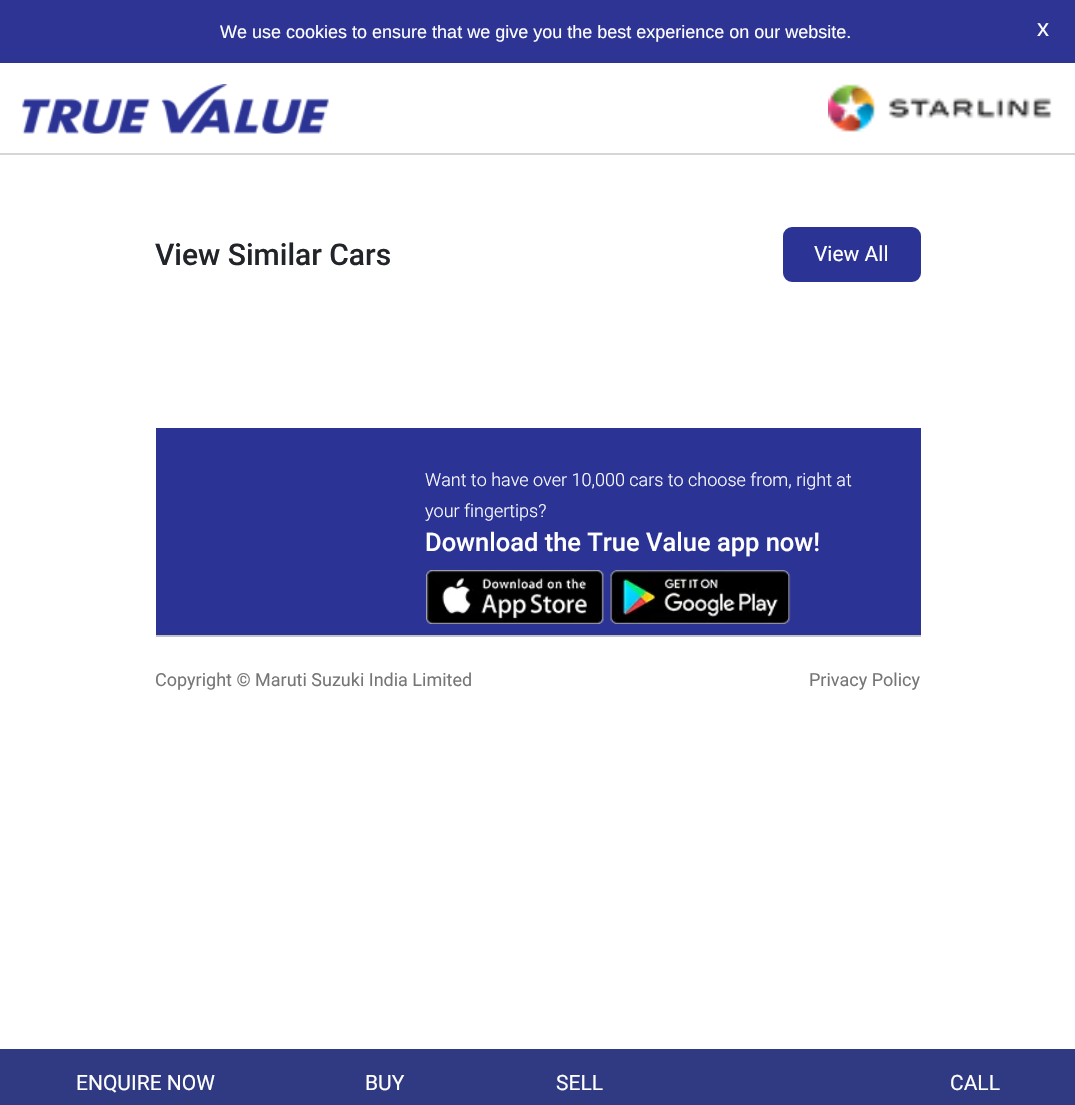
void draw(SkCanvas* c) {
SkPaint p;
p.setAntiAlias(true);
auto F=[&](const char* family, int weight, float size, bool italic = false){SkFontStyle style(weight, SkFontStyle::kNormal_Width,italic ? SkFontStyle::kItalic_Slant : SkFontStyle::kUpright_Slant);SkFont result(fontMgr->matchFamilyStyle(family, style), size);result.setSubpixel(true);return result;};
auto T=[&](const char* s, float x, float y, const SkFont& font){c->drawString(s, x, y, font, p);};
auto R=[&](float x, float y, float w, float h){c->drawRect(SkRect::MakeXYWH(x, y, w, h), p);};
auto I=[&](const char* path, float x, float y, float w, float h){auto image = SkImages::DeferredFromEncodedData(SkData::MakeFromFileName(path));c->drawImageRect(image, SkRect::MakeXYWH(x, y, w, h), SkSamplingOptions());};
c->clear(0xffffffff);
p.setColor(0xff2d3494);
R(0,0,1075,63);
auto f1 = F("Liberation Sans",400,18);
p.setColor(0xffffffff);
T("We use cookies to ensure that we give you the best experience on our website.",220,38,f1);
auto f2 = F("Liberation Sans",400,24);
T("x",1037,36,f2);
p.setColor(0xffd6d6d6);
R(0,153,1075,2);
I("1.png",22,84,307,50);
I("2.png",828,84,224,48);
auto f3 = F("Roboto",500,30);
p.setColor(0xff212529);
T("View Similar Cars",155,265,f3);
p.setColor(0xff2b3395);
c->drawRoundRect(SkRect::MakeXYWH(784,228,136,53),8,8,p);
p.setStroke(true);
p.setStrokeWidth(2);
c->drawRoundRect(SkRect::MakeXYWH(784,228,136,53),8,8,p);
auto f4 = F("Roboto",400,21);
p.setStroke(false);
p.setColor(0xffffffff);
T("View All",814,261,f4);
p.setColor(0xff2b3395);
R(156,428,765,207);
auto f5 = F("Roboto",300,18);
p.setColor(0xffffffff);
T("Want to have over 10,000 cars to choose from, right at",425,486,f5);
T("your fingertips?",425,517,f5);
auto f6 = F("Roboto",500,25.5);
T("Download the True Value app now!",425,551,f6);
I("3.png",426,570,178,54);
I("4.png",610,570,181,54);
p.setColor(0xffc3c3c3);
R(156,635,765,2);
auto f7 = F("Roboto",400,18);
p.setColor(0xff767676);
T("Copyright © Maruti Suzuki India Limited",155,686,f7);
T("Privacy Policy",809,686,f7);
p.setColor(0xff2f3a82);
R(0,1049,1075,56);
p.setColor(0xffffffff);
T("ENQUIRE NOW",76,1090,f4);
T("BUY",365,1090,f4);
T("SELL",556,1090,f4);
T("CALL",950,1090,f4);
}
